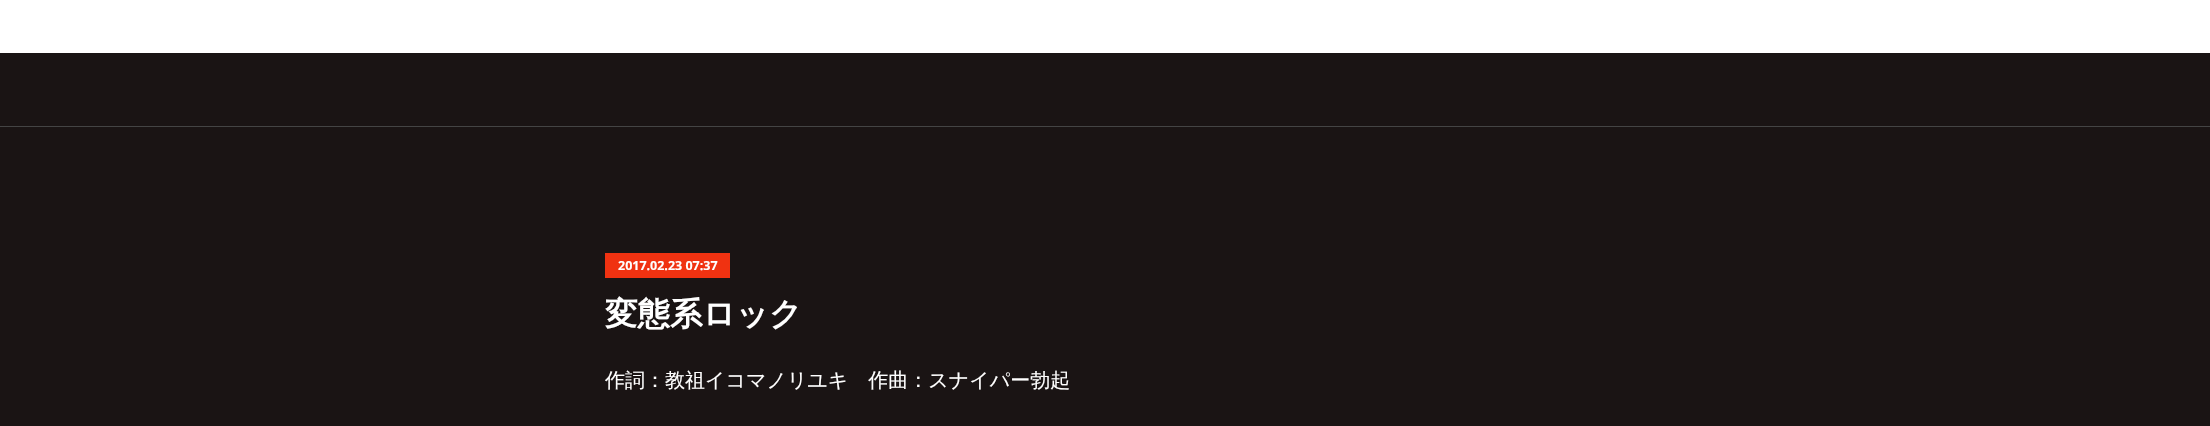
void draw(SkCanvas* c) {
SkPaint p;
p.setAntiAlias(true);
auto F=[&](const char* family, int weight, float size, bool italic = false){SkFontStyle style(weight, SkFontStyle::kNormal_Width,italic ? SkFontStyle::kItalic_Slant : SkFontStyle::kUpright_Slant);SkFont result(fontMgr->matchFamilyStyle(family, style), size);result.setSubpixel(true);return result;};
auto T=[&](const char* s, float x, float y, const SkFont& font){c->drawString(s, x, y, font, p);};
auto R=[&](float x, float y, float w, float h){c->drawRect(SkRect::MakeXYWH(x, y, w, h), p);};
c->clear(0xff1a1414);
p.setColor(0xffffffff);
R(0,0,2210,53);
p.setColor(0xff444444);
R(0,126,2210,1);
p.setColor(0xfff03211);
R(605,253,125,25);
auto f1 = F("Open Sans",700,12.5);
p.setColor(0xffffffff);
T("2017.02.23 07:37",618,270,f1);
auto f2 = F("WenQuanYi Zen Hei",700,32.5);
T("変態系ロック",605,325,f2);
auto f3 = F("WenQuanYi Zen Hei",500,20);
T("作詞：教祖イコマノリユキ　作曲：スナイパー勃起",605,387,f3);
}
